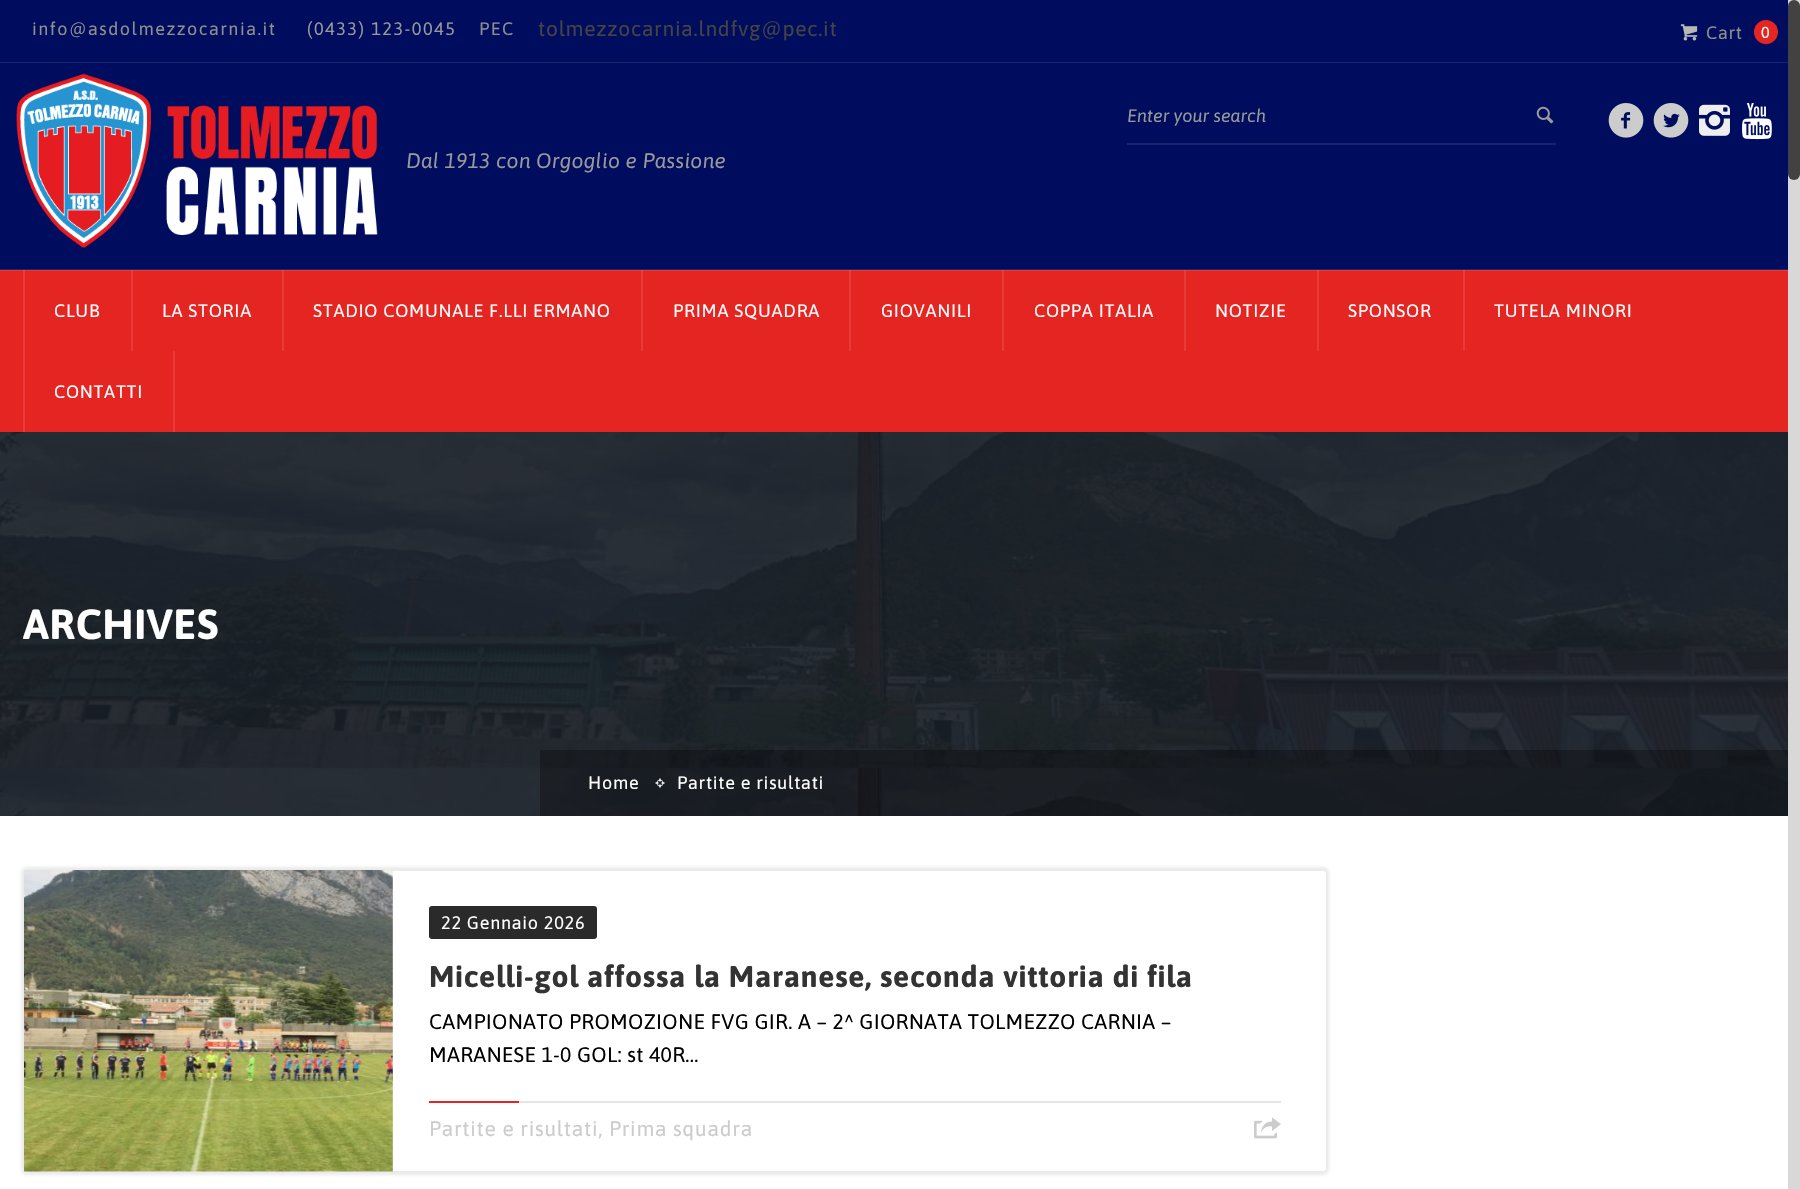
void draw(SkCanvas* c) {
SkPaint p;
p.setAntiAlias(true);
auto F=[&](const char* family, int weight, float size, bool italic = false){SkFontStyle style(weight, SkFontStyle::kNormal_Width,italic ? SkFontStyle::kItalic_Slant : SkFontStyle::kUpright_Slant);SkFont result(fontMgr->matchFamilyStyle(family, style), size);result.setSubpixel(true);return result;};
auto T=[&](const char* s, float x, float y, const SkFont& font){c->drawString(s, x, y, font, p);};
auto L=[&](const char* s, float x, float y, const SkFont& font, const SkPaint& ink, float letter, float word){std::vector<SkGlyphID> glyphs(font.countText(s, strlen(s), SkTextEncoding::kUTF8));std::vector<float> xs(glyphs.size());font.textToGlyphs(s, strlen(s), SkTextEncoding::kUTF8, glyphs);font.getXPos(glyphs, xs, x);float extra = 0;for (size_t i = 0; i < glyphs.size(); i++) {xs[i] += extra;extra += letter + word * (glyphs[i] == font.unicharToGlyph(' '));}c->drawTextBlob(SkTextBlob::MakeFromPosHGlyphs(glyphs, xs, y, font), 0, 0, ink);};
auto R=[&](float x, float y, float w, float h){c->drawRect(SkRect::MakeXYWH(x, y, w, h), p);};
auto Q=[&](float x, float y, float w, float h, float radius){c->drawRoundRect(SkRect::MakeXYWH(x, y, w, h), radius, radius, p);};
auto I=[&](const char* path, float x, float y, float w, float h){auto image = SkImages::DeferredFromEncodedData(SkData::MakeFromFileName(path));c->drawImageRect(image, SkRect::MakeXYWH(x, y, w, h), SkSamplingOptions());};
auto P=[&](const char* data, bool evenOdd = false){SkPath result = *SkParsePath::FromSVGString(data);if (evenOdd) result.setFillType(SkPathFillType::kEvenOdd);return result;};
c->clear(0xffe52521);
p.setColor(0xffe83b37);
R(1463,270,2,81);
R(1317,270,2,81);
R(1184,270,2,81);
R(1002,270,2,81);
R(849,270,2,81);
R(641,270,2,81);
R(282,270,2,81);
R(131,270,2,81);
R(23,270,2,162);
R(0,270,1788,1);
p.setColor(0xffea4f4b);
R(1463,270,2,1);
R(1317,270,2,1);
R(1184,270,2,1);
R(1002,270,2,1);
R(849,270,2,1);
R(641,270,2,1);
R(282,270,2,1);
R(131,270,2,1);
R(23,270,2,1);
p.setColor(0xff000c5e);
R(0,0,1788,62);
p.setColor(0xff1a246e);
R(0,62,1788,1);
auto f1 = F("Asap",400,18);
p.setColor(0xff8f8f8f);
L("info@asdolmezzocarnia.it",32,35,f1,p,1.5,0);
p.setColor(0xff999999);
L("(0433) 123-0045",307,35,f1,p,1.5,0);
p.setColor(0xff8f8f8f);
L("PEC",479,35,f1,p,1.5,0);
auto f2 = F("Asap",400,21);
p.setColor(0xff444444);
L("tolmezzocarnia.lndfvg@pec.it",538,36,f2,p,.75,0);
I("1.png",1680,24,18,17);
p.setColor(0xff8f8f8f);
L("Cart",1706,39,f1,p,.75,0);
p.setColor(0xffe52521);
c->drawCircle(1766,32,12,p);
auto f3 = F("Asap",400,16);
p.setColor(0xffffffff);
L("0",1761,38,f3,p,.75,0);
p.setColor(0xff000c5e);
R(0,63,1788,206);
p.setColor(0xff1a246e);
R(0,269,1788,1);
R(1127,143,429,2);
auto f4 = F("Asap",400,18,true);
p.setColor(0xff999999);
T("Enter your search",1127,122,f4);
I("2.png",1536,106,18,18);
I("3.png",1608,103,36,35);
I("4.png",1653,103,36,35);
I("5.png",1699,104,31,32);
I("6.png",1742,103,30,37);
I("7.png",16,73,362,175);
auto f5 = F("Asap",400,21,true);
L("Dal 1913 con Orgoglio e Passione",406,168,f5,p,.3,0);
p.setColor(0xffffffff);
L("CLUB",54,317,f1,p,.75,0);
L("LA STORIA",162,317,f1,p,.75,0);
L("STADIO COMUNALE F.LLI ERMANO",313,317,f1,p,.75,0);
L("PRIMA SQUADRA",673,317,f1,p,.75,0);
L("GIOVANILI",881,317,f1,p,.75,0);
L("COPPA ITALIA",1034,317,f1,p,.75,0);
L("NOTIZIE",1215,317,f1,p,.75,0);
L("SPONSOR",1348,317,f1,p,.75,0);
L("TUTELA MINORI",1494,317,f1,p,.75,0);
p.setColor(0xffe83b37);
R(173,351,2,81);
p.setColor(0xffffffff);
L("CONTATTI",54,398,f1,p,.75,0);
I("8.png",0,432,1788,384);
auto f6 = F("Asap",700,42);
L("ARCHIVES",23,639,f6,p,.75,0);
p.setColor(0x4d000000);
R(540,750,1248,66);
p.setColor(0xffffffff);
L("Home",588,789,f1,p,.75,0);
I("9.png",655,778,10,10);
L("Partite e risultati",677,789,f1,p,.75,0);
R(0,816,1788,373);
c->save();
c->clipPath(P("M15 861h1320v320h-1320zm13 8h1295c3 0 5 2 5 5v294c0 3-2 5-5 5h-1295c-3 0-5-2-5-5v-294c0-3 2-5 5-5z",true),true);
p.setColor(0x14000000);
p.setMaskFilter(SkMaskFilter::MakeBlur(kNormal_SkBlurStyle, 1.5));
c->drawRoundRect(SkRect::MakeXYWH(21,867,1308,308),6,6,p);
p.setMaskFilter(nullptr);
c->restore();
p.setStroke(true);
p.setStrokeWidth(2);
p.setColor(0xffebebeb);
c->drawRoundRect(SkRect::MakeXYWH(24,870,1303,302),4,4,p);
I("10.png",24,870,369,302);
p.setStroke(false);
p.setColor(0xff2a2a2a);
Q(429,906,168,33,3);
p.setColor(0xffffffff);
L("22 Gennaio 2026",441,929,f1,p,.75,0);
auto f7 = F("Asap",700,30);
p.setColor(0xff333333);
L("Micelli-gol affossa la Maranese, seconda vittoria di fila",429,987,f7,p,.75,0);
p.setColor(0xff000000);
L("CAMPIONATO PROMOZIONE FVG GIR. A – 2^ GIORNATA TOLMEZZO CARNIA –",429,1029,f2,p,.3,0);
L("MARANESE 1-0 GOL: st 40R...",429,1062,f2,p,.3,0);
p.setColor(0xffe52521);
R(429,1101,90,2);
p.setColor(0xffe5e5e5);
R(519,1101,762,2);
p.setColor(0xffcccccc);
L("Partite e risultati, Prima squadra",429,1136,f2,p,.75,0);
I("11.png",1254,1117,27,22);
p.setColor(0xffd8d8d8);
R(1788,0,12,1189);
p.setColor(0xff424242);
Q(1788,0,12,180,6);
}
